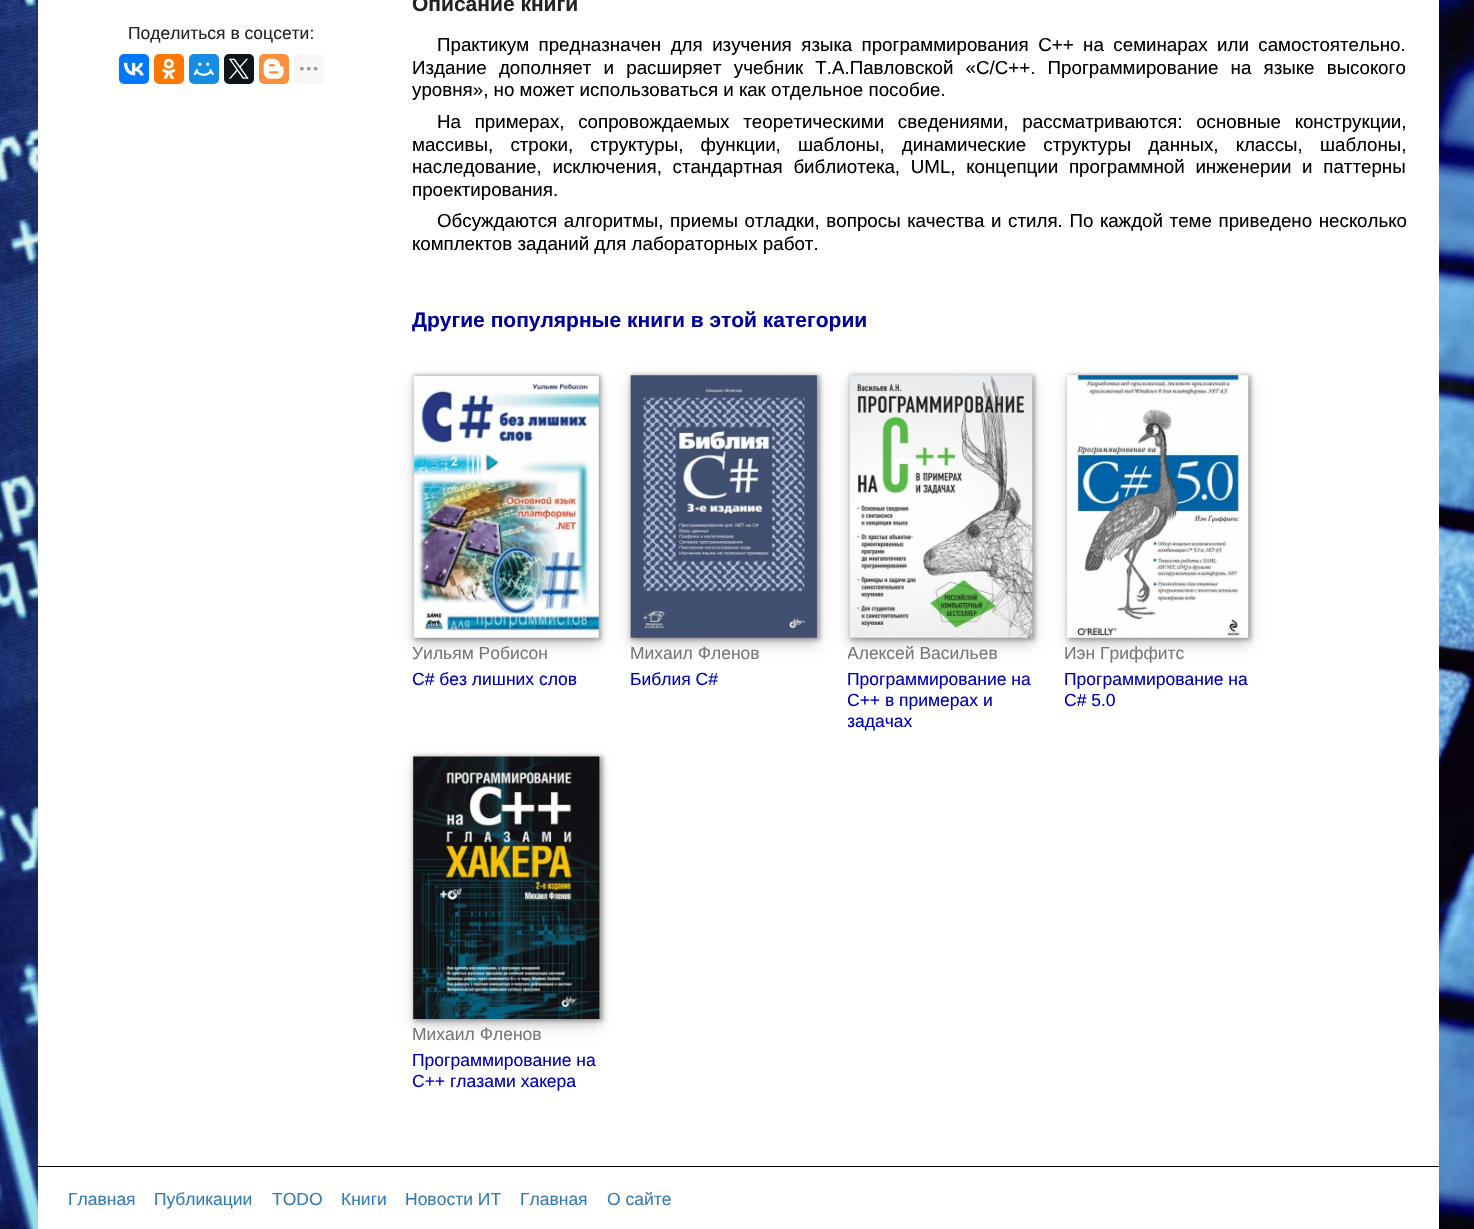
void draw(SkCanvas* c) {
SkPaint p;
p.setAntiAlias(true);
auto F=[&](const char* family, int weight, float size, bool italic = false){SkFontStyle style(weight, SkFontStyle::kNormal_Width,italic ? SkFontStyle::kItalic_Slant : SkFontStyle::kUpright_Slant);SkFont result(fontMgr->matchFamilyStyle(family, style), size);result.setSubpixel(true);return result;};
auto T=[&](const char* s, float x, float y, const SkFont& font){c->drawString(s, x, y, font, p);};
auto L=[&](const char* s, float x, float y, const SkFont& font, const SkPaint& ink, float letter, float word){std::vector<SkGlyphID> glyphs(font.countText(s, strlen(s), SkTextEncoding::kUTF8));std::vector<float> xs(glyphs.size());font.textToGlyphs(s, strlen(s), SkTextEncoding::kUTF8, glyphs);font.getXPos(glyphs, xs, x);float extra = 0;for (size_t i = 0; i < glyphs.size(); i++) {xs[i] += extra;extra += letter + word * (glyphs[i] == font.unicharToGlyph(' '));}c->drawTextBlob(SkTextBlob::MakeFromPosHGlyphs(glyphs, xs, y, font), 0, 0, ink);};
auto R=[&](float x, float y, float w, float h){c->drawRect(SkRect::MakeXYWH(x, y, w, h), p);};
auto Q=[&](float x, float y, float w, float h, float radius){c->drawRoundRect(SkRect::MakeXYWH(x, y, w, h), radius, radius, p);};
auto I=[&](const char* path, float x, float y, float w, float h){auto image = SkImages::DeferredFromEncodedData(SkData::MakeFromFileName(path));c->drawImageRect(image, SkRect::MakeXYWH(x, y, w, h), SkSamplingOptions());};
c->clear(0xffffffff);
I("1.png",0,0,1474,1229);
p.setColor(0xffffffff);
R(38,0,1401,1166);
auto f1 = F("Liberation Sans",400,17.5);
p.setColor(0xff222222);
T("Поделиться в соцсети:",128,39,f1);
p.setColor(0xff0077ff);
Q(119,54,30,30,5);
I("2.png",123,62,21,14);
p.setColor(0xffff7700);
Q(154,54,30,30,5);
I("3.png",162,58,14,21);
p.setColor(0xff168de2);
Q(189,54,30,30,5);
I("4.png",193,62,21,14);
p.setColor(0xff0f1419);
Q(224,54,30,30,5);
I("5.png",228,58,21,21);
p.setColor(0xfffb8f3d);
Q(259,54,30,30,5);
I("6.png",263,58,21,21);
p.setColor(0xfff7f7f7);
Q(294,54,30,30,5);
I("7.png",300,66,18,5);
auto f2 = F("Liberation Sans",700,21);
p.setColor(0xff222222);
T("Описание книги",412,11,f2);
auto f3 = F("Liberation Sans",400,18.75);
p.setColor(0xff000000);
L("Практикум предназначен для изучения языка программирования С++ на семинарах или самостоятельно.",437,51,f3,p,0,4.25);
L("Издание дополняет и расширяет учебник Т.А.Павловской «С/С++. Программирование на языке высокого",412,74,f3,p,0,7);
T("уровня», но может использоваться и как отдельное пособие.",412,96,f3);
L("На примерах, сопровождаемых теоретическими сведениями, рассматриваются: основные конструкции,",437,128,f3,p,0,8.5);
L("массивы, строки, структуры, функции, шаблоны, динамические структуры данных, классы, шаблоны,",412,151,f3,p,0,12);
L("наследование, исключения, стандартная библиотека, UML, концепции программной инженерии и паттерны",412,173,f3,p,0,5.5);
T("проектирования.",412,196,f3);
L("Обсуждаются алгоритмы, приемы отладки, вопросы качества и стиля. По каждой теме приведено несколько",437,227,f3,p,0,1.4);
T("комплектов заданий для лабораторных работ.",412,250,f3);
p.setColor(0xff000099);
T("Другие популярные книги в этой категории",412,327,f2);
p.setColor(0x33000000);
p.setMaskFilter(SkMaskFilter::MakeBlur(kNormal_SkBlurStyle, 6));
c->drawRect(SkRect::MakeXYWH(414,381,185,263),p);
p.setMaskFilter(nullptr);
p.setColor(0x4d000000);
p.setMaskFilter(SkMaskFilter::MakeBlur(kNormal_SkBlurStyle, 2));
c->drawRect(SkRect::MakeXYWH(414,375,187,265),p);
p.setMaskFilter(nullptr);
I("8.png",413,376,186,262);
p.setColor(0xff767579);
T("Уильям Робисон",412,659,f1);
p.setColor(0xff0000bb);
T("С# без лишних слов",412,685,f1);
p.setColor(0x33000000);
p.setMaskFilter(SkMaskFilter::MakeBlur(kNormal_SkBlurStyle, 6));
c->drawRect(SkRect::MakeXYWH(631,381,187,263),p);
p.setMaskFilter(nullptr);
p.setColor(0x4d000000);
p.setMaskFilter(SkMaskFilter::MakeBlur(kNormal_SkBlurStyle, 2));
c->drawRect(SkRect::MakeXYWH(631,375,189,265),p);
p.setMaskFilter(nullptr);
I("9.png",630,375,187,263);
p.setColor(0xff767579);
T("Михаил Фленов",630,659,f1);
p.setColor(0xff0000bb);
T("Библия C#",630,685,f1);
p.setColor(0x33000000);
p.setMaskFilter(SkMaskFilter::MakeBlur(kNormal_SkBlurStyle, 6));
c->drawRect(SkRect::MakeXYWH(850,381,183,263),p);
p.setMaskFilter(nullptr);
p.setColor(0x4d000000);
p.setMaskFilter(SkMaskFilter::MakeBlur(kNormal_SkBlurStyle, 2));
c->drawRect(SkRect::MakeXYWH(850,375,185,265),p);
p.setMaskFilter(nullptr);
I("10.png",849,375,184,263);
c->save();
c->clipRect(SkRect::MakeXYWH(848,638,187,26));
p.setColor(0xff767579);
T("Алексей Васильев",847,659,f1);
c->restore();
p.setColor(0xff0000bb);
T("Программирование на",847,685,f1);
c->save();
c->clipRect(SkRect::MakeXYWH(848,664,187,67));
T("C++ в примерах и",847,706,f1);
T("задачах",847,727,f1);
c->restore();
p.setColor(0x33000000);
p.setMaskFilter(SkMaskFilter::MakeBlur(kNormal_SkBlurStyle, 6));
c->drawRect(SkRect::MakeXYWH(1068,381,181,263),p);
p.setMaskFilter(nullptr);
p.setColor(0x4d000000);
p.setMaskFilter(SkMaskFilter::MakeBlur(kNormal_SkBlurStyle, 2));
c->drawRect(SkRect::MakeXYWH(1068,375,183,265),p);
p.setMaskFilter(nullptr);
I("11.png",1067,375,182,263);
p.setColor(0xff767579);
T("Иэн Гриффитс",1064,659,f1);
p.setColor(0xff0000bb);
T("Программирование на",1064,685,f1);
T("C# 5.0",1064,706,f1);
p.setColor(0x33000000);
p.setMaskFilter(SkMaskFilter::MakeBlur(kNormal_SkBlurStyle, 6));
c->drawRect(SkRect::MakeXYWH(414,763,186,262),p);
p.setMaskFilter(nullptr);
p.setColor(0x4d000000);
p.setMaskFilter(SkMaskFilter::MakeBlur(kNormal_SkBlurStyle, 2));
c->drawRect(SkRect::MakeXYWH(414,756,189,265),p);
p.setMaskFilter(nullptr);
I("12.png",413,756,187,263);
p.setColor(0xff767579);
T("Михаил Фленов",412,1040,f1);
p.setColor(0xff0000bb);
T("Программирование на",412,1066,f1);
T("С++ глазами хакера",412,1087,f1);
p.setColor(0xffffffff);
R(38,1167,1401,62);
p.setColor(0xff000000);
R(38,1166,1401,1);
p.setColor(0xff337ab7);
T("Главная",68,1205,f1);
T("Публикации",154,1205,f1);
T("TODO",272,1205,f1);
T("Книги",341,1205,f1);
T("Новости ИТ",405,1205,f1);
T("Главная",520,1205,f1);
T("О сайте",607,1205,f1);
}
